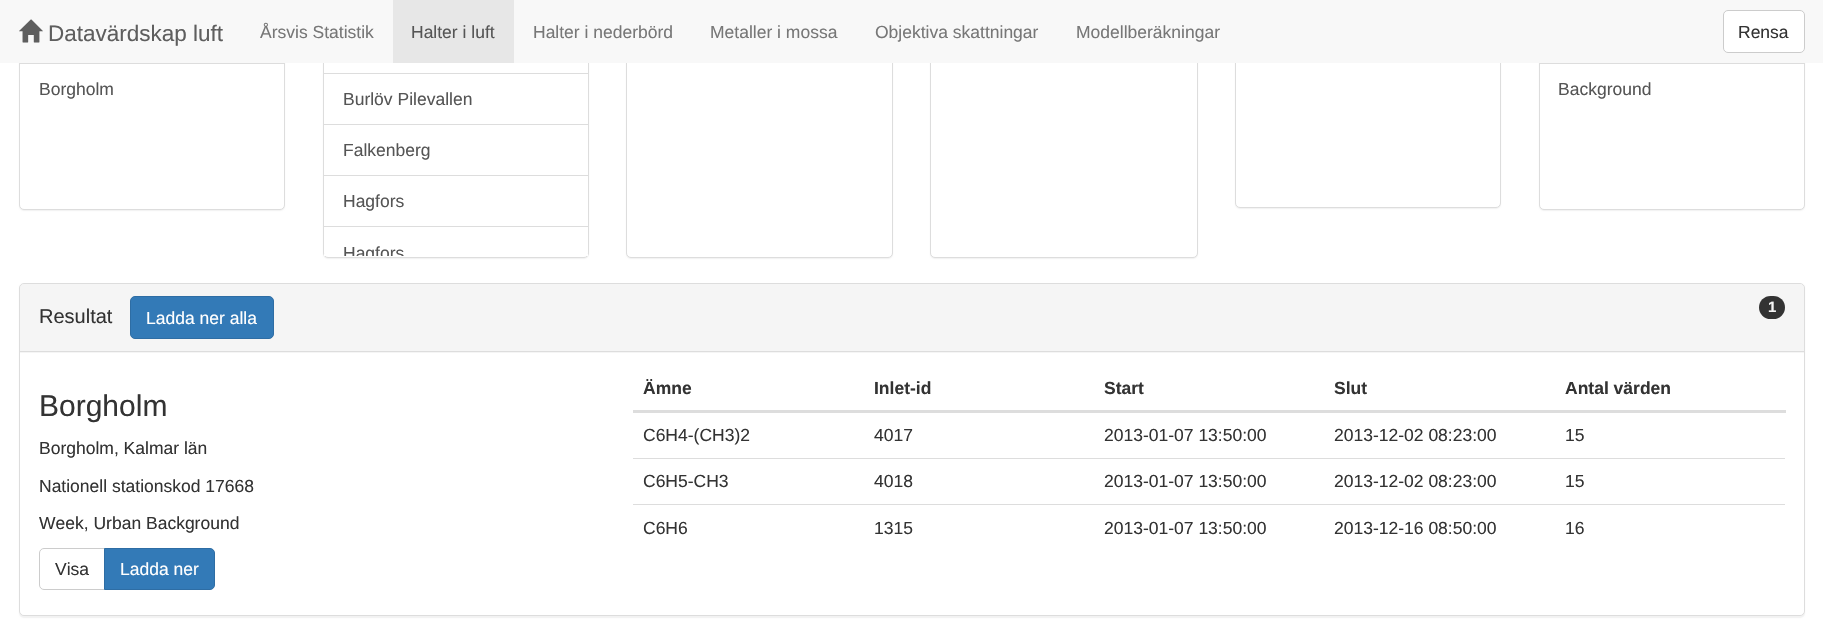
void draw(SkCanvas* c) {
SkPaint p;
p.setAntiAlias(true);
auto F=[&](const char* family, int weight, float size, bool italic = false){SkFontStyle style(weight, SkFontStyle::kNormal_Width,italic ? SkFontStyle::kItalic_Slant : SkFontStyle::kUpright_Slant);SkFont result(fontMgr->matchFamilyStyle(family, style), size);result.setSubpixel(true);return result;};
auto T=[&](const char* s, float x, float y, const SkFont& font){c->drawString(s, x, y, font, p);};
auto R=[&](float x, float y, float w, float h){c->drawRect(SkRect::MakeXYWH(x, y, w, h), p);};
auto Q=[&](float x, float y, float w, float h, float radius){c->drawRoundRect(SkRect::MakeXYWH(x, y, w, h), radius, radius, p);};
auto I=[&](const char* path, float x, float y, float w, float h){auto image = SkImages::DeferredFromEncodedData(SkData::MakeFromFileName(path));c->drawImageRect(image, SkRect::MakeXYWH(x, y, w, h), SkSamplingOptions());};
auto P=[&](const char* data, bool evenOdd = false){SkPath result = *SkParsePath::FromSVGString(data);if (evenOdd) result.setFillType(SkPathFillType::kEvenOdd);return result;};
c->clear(0xffffffff);
p.setColor(0x0d000000);
p.setMaskFilter(SkMaskFilter::MakeBlur(kNormal_SkBlurStyle, .5));
c->drawRoundRect(SkRect::MakeXYWH(19,16,266,195),5,5,p);
p.setMaskFilter(nullptr);
p.setColor(0xffffffff);
c->drawRoundRect(SkRect::MakeXYWH(19.5,15.5,265,194),4.5,4.5,p);
p.setStroke(true);
p.setStrokeWidth(1);
p.setColor(0xffdddddd);
c->drawRoundRect(SkRect::MakeXYWH(19.5,15.5,265,194),4.5,4.5,p);
p.setStroke(false);
p.setColor(0x0d000000);
p.setMaskFilter(SkMaskFilter::MakeBlur(kNormal_SkBlurStyle, .5));
c->drawRoundRect(SkRect::MakeXYWH(323,-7,266,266),5,5,p);
p.setMaskFilter(nullptr);
p.setColor(0xffffffff);
c->drawRoundRect(SkRect::MakeXYWH(323.5,-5.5,265,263),4.5,4.5,p);
p.setStroke(true);
p.setColor(0xffdddddd);
c->drawRoundRect(SkRect::MakeXYWH(323.5,-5.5,265,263),4.5,4.5,p);
p.setStroke(false);
p.setColor(0x0d000000);
p.setMaskFilter(SkMaskFilter::MakeBlur(kNormal_SkBlurStyle, .5));
c->drawRoundRect(SkRect::MakeXYWH(626,-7,267,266),5,5,p);
p.setMaskFilter(nullptr);
p.setColor(0xffffffff);
c->drawRoundRect(SkRect::MakeXYWH(626.5,-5.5,266,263),4.5,4.5,p);
p.setStroke(true);
p.setColor(0xffdddddd);
c->drawRoundRect(SkRect::MakeXYWH(626.5,-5.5,266,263),4.5,4.5,p);
p.setStroke(false);
p.setColor(0x0d000000);
p.setMaskFilter(SkMaskFilter::MakeBlur(kNormal_SkBlurStyle, .5));
c->drawRoundRect(SkRect::MakeXYWH(930,-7,268,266),5,5,p);
p.setMaskFilter(nullptr);
p.setColor(0xffffffff);
c->drawRoundRect(SkRect::MakeXYWH(930.5,-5.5,267,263),4.5,4.5,p);
p.setStroke(true);
p.setColor(0xffdddddd);
c->drawRoundRect(SkRect::MakeXYWH(930.5,-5.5,267,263),4.5,4.5,p);
p.setStroke(false);
p.setColor(0x0d000000);
p.setMaskFilter(SkMaskFilter::MakeBlur(kNormal_SkBlurStyle, .5));
c->drawRoundRect(SkRect::MakeXYWH(1235,-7,266,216),5,5,p);
p.setMaskFilter(nullptr);
p.setColor(0xffffffff);
c->drawRoundRect(SkRect::MakeXYWH(1235.5,-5.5,265,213),4.5,4.5,p);
p.setStroke(true);
p.setColor(0xffdddddd);
c->drawRoundRect(SkRect::MakeXYWH(1235.5,-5.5,265,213),4.5,4.5,p);
p.setStroke(false);
p.setColor(0x0d000000);
p.setMaskFilter(SkMaskFilter::MakeBlur(kNormal_SkBlurStyle, .5));
c->drawRoundRect(SkRect::MakeXYWH(1539,16,266,195),5,5,p);
p.setMaskFilter(nullptr);
p.setColor(0xffffffff);
c->drawRoundRect(SkRect::MakeXYWH(1539.5,15.5,265,194),4.5,4.5,p);
p.setStroke(true);
p.setColor(0xffdddddd);
c->drawRoundRect(SkRect::MakeXYWH(1539.5,15.5,265,194),4.5,4.5,p);
p.setStroke(false);
p.setColor(0xfff8f8f8);
R(0,0,1823,63);
I("1.png",19,19,24,24);
auto f1 = F("Liberation Sans",400,22.5);
p.setColor(0xff5e5e5e);
T("Datavärdskap luft",48,41,f1);
auto f2 = F("Liberation Sans",400,17.5);
p.setColor(0xff777777);
T("Årsvis Statistik",260,38,f2);
p.setColor(0xffe7e7e7);
R(393,0,121,63);
p.setColor(0xff555555);
T("Halter i luft",411,38,f2);
p.setColor(0xff777777);
T("Halter i nederbörd",533,38,f2);
T("Metaller i mossa",710,38,f2);
T("Objektiva skattningar",875,38,f2);
T("Modellberäkningar",1076,38,f2);
p.setColor(0xffffffff);
c->drawRoundRect(SkRect::MakeXYWH(1723.5,10.5,81,42),4.5,4.5,p);
p.setStroke(true);
p.setColor(0xffcccccc);
c->drawRoundRect(SkRect::MakeXYWH(1723.5,10.5,81,42),4.5,4.5,p);
p.setStroke(false);
p.setColor(0xff333333);
T("Rensa",1738,38,f2);
p.setColor(0xffdddddd);
R(20,63,264,1);
p.setColor(0xff555555);
T("Borgholm",39,95,f2);
p.setColor(0xffdddddd);
R(324,73,264,1);
R(324,124,264,1);
p.setColor(0xff555555);
T("Burlöv Pilevallen",343,105,f2);
p.setColor(0xffdddddd);
R(324,175,264,1);
p.setColor(0xff555555);
T("Falkenberg",343,156,f2);
p.setColor(0xffdddddd);
R(324,226,264,1);
p.setColor(0xff555555);
T("Hagfors",343,207,f2);
p.setColor(0xffffffff);
R(324,254,264,2);
c->save();
c->clipRect(SkRect::MakeXYWH(324,0,264,256));
p.setColor(0xff555555);
T("Hagfors",343,259,f2);
c->restore();
p.setColor(0xffdddddd);
R(1540,63,264,1);
p.setColor(0xff555555);
T("Background",1558,95,f2);
p.setColor(0x0d000000);
p.setMaskFilter(SkMaskFilter::MakeBlur(kNormal_SkBlurStyle, .5));
c->drawRoundRect(SkRect::MakeXYWH(19,284,1786,334),5,5,p);
p.setMaskFilter(nullptr);
p.setStroke(true);
p.setColor(0xffdddddd);
c->drawRoundRect(SkRect::MakeXYWH(19.5,283.5,1785,332),4.5,4.5,p);
p.setStroke(false);
p.setColor(0xfff5f5f5);
c->drawPath(P("M24 284h1776c2 0 4 2 4 4v65h-1784v-65c0-2 2-4 4-4z"),p);
p.setColor(0xffdddddd);
R(20,351,1784,1);
p.setColor(0xff333333);
Q(1759,296,26,23,11.5);
auto f3 = F("Liberation Sans",700,15);
p.setColor(0xfff5f5f5);
T("1",1768,312,f3);
auto f4 = F("Liberation Sans",400,20);
p.setColor(0xff333333);
T("Resultat",39,323,f4);
p.setColor(0xff337ab7);
c->drawRoundRect(SkRect::MakeXYWH(130.5,296.5,143,42),4.5,4.5,p);
p.setStroke(true);
p.setColor(0xff2e6da4);
c->drawRoundRect(SkRect::MakeXYWH(130.5,296.5,143,42),4.5,4.5,p);
p.setStroke(false);
p.setColor(0xffffffff);
T("Ladda ner alla",146,324,f2);
c->drawPath(P("M20 353h1784v258c0 2-2 4-4 4h-1776c-2 0-4-2-4-4z"),p);
auto f5 = F("Liberation Sans",400,30);
p.setColor(0xff333333);
T("Borgholm",39,416,f5);
T("Borgholm, Kalmar län",39,454,f2);
T("Nationell stationskod 17668",39,492,f2);
T("Week, Urban Background",39,529,f2);
p.setStroke(true);
p.setColor(0xffcccccc);
c->drawPath(P("M44 548.5h60.5v41h-60.5c-2.5 0-4.5-2-4.5-4.5v-32c0-2.5 2-4.5 4.5-4.5z"),p);
p.setStroke(false);
p.setColor(0xff333333);
T("Visa",55,575,f2);
p.setColor(0xff337ab7);
c->drawPath(P("M104.5 548.5h105.5c2.5 0 4.5 2 4.5 4.5v32c0 2.5-2 4.5-4.5 4.5h-105.5z"),p);
p.setStroke(true);
p.setColor(0xff2e6da4);
c->drawPath(P("M104.5 548.5h105.5c2.5 0 4.5 2 4.5 4.5v32c0 2.5-2 4.5-4.5 4.5h-105.5z"),p);
p.setStroke(false);
p.setColor(0xffffffff);
T("Ladda ner",120,575,f2);
auto f6 = F("Liberation Sans",700,17.5);
p.setColor(0xff333333);
T("Ämne",643,394,f6);
T("Inlet-id",874,394,f6);
T("Start",1104,394,f6);
T("Slut",1334,394,f6);
p.setColor(0xffdddddd);
R(633,410,1153,3);
p.setColor(0xff333333);
T("Antal värden",1565,394,f6);
T("C6H4-(CH3)2",643,441,f2);
T("4017",874,441,f2);
T("2013-01-07 13:50:00",1104,441,f2);
T("2013-12-02 08:23:00",1334,441,f2);
T("15",1565,441,f2);
T("C6H5-CH3",643,487,f2);
T("4018",874,487,f2);
T("2013-01-07 13:50:00",1104,487,f2);
T("2013-12-02 08:23:00",1334,487,f2);
p.setColor(0xffdddddd);
R(633,458,1152,1);
p.setColor(0xff333333);
T("15",1565,487,f2);
T("C6H6",643,534,f2);
T("1315",874,534,f2);
T("2013-01-07 13:50:00",1104,534,f2);
T("2013-12-16 08:50:00",1334,534,f2);
p.setColor(0xffdddddd);
R(633,504,1152,1);
p.setColor(0xff333333);
T("16",1565,534,f2);
}
